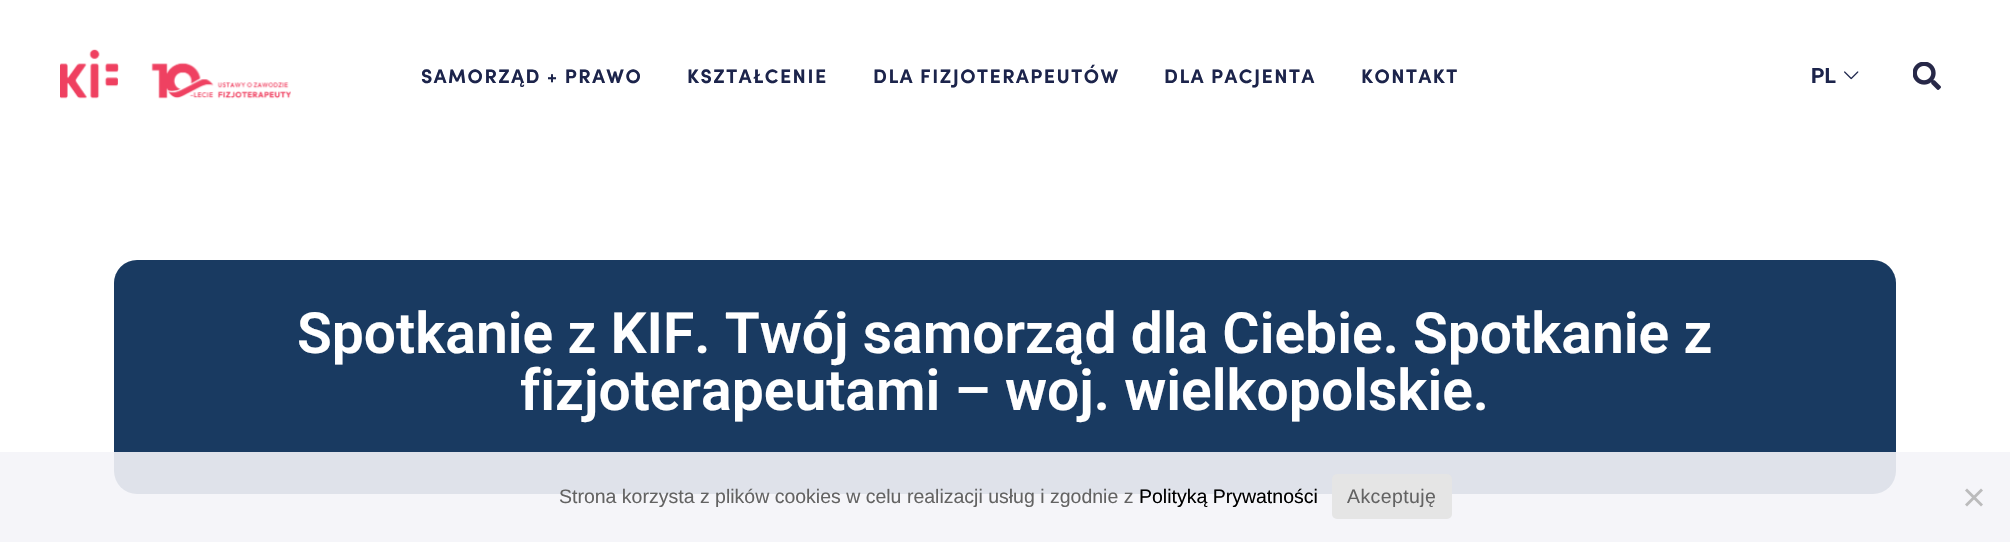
void draw(SkCanvas* c) {
SkPaint p;
p.setAntiAlias(true);
auto F=[&](const char* family, int weight, float size, bool italic = false){SkFontStyle style(weight, SkFontStyle::kNormal_Width,italic ? SkFontStyle::kItalic_Slant : SkFontStyle::kUpright_Slant);SkFont result(fontMgr->matchFamilyStyle(family, style), size);result.setSubpixel(true);return result;};
auto T=[&](const char* s, float x, float y, const SkFont& font){c->drawString(s, x, y, font, p);};
auto L=[&](const char* s, float x, float y, const SkFont& font, const SkPaint& ink, float letter, float word){std::vector<SkGlyphID> glyphs(font.countText(s, strlen(s), SkTextEncoding::kUTF8));std::vector<float> xs(glyphs.size());font.textToGlyphs(s, strlen(s), SkTextEncoding::kUTF8, glyphs);font.getXPos(glyphs, xs, x);float extra = 0;for (size_t i = 0; i < glyphs.size(); i++) {xs[i] += extra;extra += letter + word * (glyphs[i] == font.unicharToGlyph(' '));}c->drawTextBlob(SkTextBlob::MakeFromPosHGlyphs(glyphs, xs, y, font), 0, 0, ink);};
auto R=[&](float x, float y, float w, float h){c->drawRect(SkRect::MakeXYWH(x, y, w, h), p);};
auto Q=[&](float x, float y, float w, float h, float radius){c->drawRoundRect(SkRect::MakeXYWH(x, y, w, h), radius, radius, p);};
auto I=[&](const char* path, float x, float y, float w, float h){auto image = SkImages::DeferredFromEncodedData(SkData::MakeFromFileName(path));c->drawImageRect(image, SkRect::MakeXYWH(x, y, w, h), SkSamplingOptions());};
auto P=[&](const char* data, bool evenOdd = false){SkPath result = *SkParsePath::FromSVGString(data);if (evenOdd) result.setFillType(SkPathFillType::kEvenOdd);return result;};
c->clear(0xffffffff);
I("1.png",60,49,231,50);
auto f1 = F("Sofia",700,19.5);
p.setColor(0xff1c244b);
L("SAMORZĄD + PRAWO",421,83,f1,p,1.5,0);
L("KSZTAŁCENIE",687,83,f1,p,1.5,0);
L("DLA FIZJOTERAPEUTÓW",873,83,f1,p,1.5,0);
L("DLA PACJENTA",1164,83,f1,p,1.5,0);
L("KONTAKT",1361,83,f1,p,1.5,0);
auto f2 = F("Roboto",700,21);
T("PL",1811,83,f2);
I("2.png",1844,71,15,9);
I("3.png",1913,62,28,28);
p.setColor(0xff193a61);
Q(114,260,1782,234,23);
auto f3 = F("Roboto",600,57);
p.setColor(0xffffffff);
T("Spotkanie z KIF. Twój samorząd dla Ciebie. Spotkanie z",297,353,f3);
T("fizjoterapeutami – woj. wielkopolskie.",520,410,f3);
p.setColor(0xe6f4f4f8);
R(0,452,2010,90);
auto f4 = F("Liberation Sans",400,19.5);
p.setColor(0xff636363);
T("Strona korzysta z plików cookies w celu realizacji usług i zgodnie z",559,503,f4);
p.setColor(0xff000000);
T("Polityką Prywatności",1139,503,f4);
p.setColor(0xffe5e5e5);
Q(1332,474,120,45,5);
p.setColor(0xff636363);
L("Akceptuję",1347,503,f4,p,.4,0);
p.setColor(0xffbbbbbc);
c->drawPath(P("M1981 488.5l2 2l-16 16l-2-2z"),p);
c->drawPath(P("M1965 490.5l2-2l16 16l-2 2z"),p);
}
